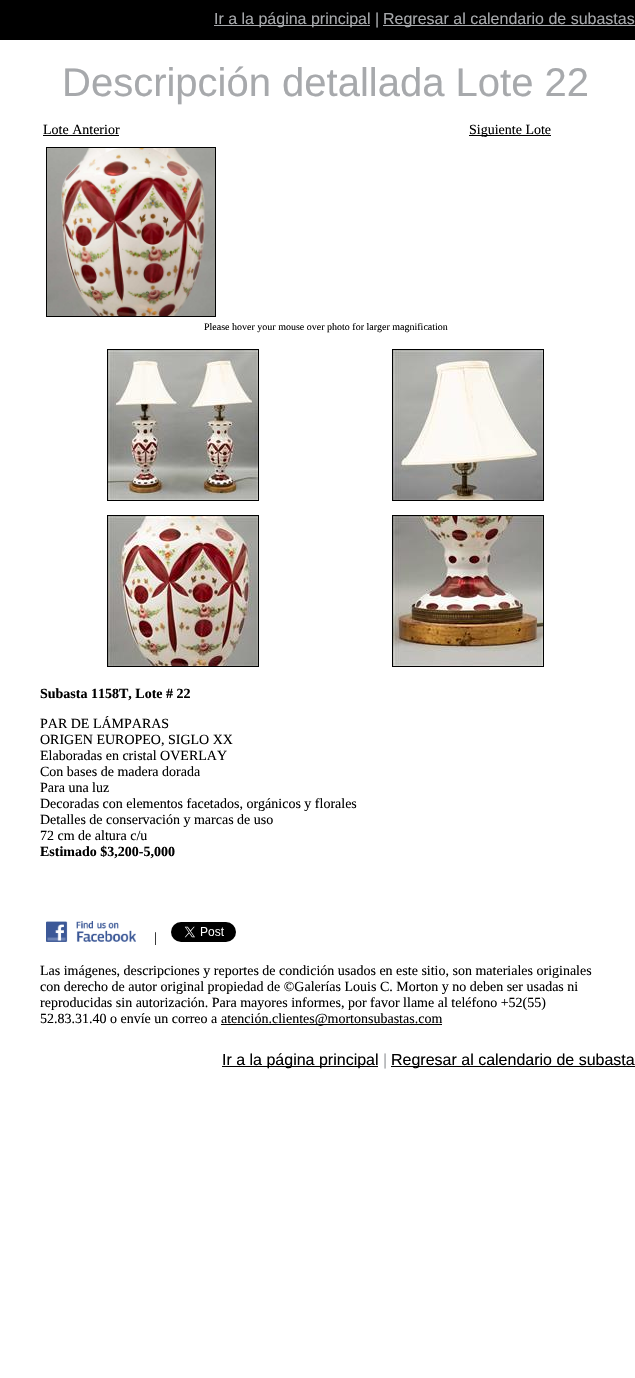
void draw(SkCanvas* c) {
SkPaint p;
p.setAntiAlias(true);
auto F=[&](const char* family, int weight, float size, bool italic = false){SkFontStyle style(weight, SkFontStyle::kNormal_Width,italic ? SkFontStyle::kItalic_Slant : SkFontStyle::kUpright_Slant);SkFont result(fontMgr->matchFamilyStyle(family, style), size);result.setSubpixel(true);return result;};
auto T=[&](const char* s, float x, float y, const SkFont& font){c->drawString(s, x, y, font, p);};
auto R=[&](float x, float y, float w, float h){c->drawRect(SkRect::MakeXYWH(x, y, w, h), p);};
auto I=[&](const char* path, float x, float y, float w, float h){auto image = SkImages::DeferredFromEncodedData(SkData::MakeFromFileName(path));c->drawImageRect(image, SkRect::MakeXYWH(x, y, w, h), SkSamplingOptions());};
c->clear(0xffffffff);
p.setColor(0xff000000);
R(0,0,635,40);
p.setColor(0xffa7a9ac);
R(214,25,156,1);
auto f1 = F("Liberation Sans",400,16);
T("Ir a la página principal |",214,24,f1);
R(383,25,252,1);
T("Regresar al calendario de subastas",383,24,f1);
auto f2 = F("Liberation Sans",400,40);
T("Descripción detallada Lote 22",62,96,f2);
auto f3 = F("Liberation Serif",400,14);
p.setColor(0xff000000);
T("Lote Anterior",43,134,f3);
R(43,135,76,1);
R(469,135,82,1);
T("Siguiente Lote",469,134,f3);
p.setStroke(true);
p.setStrokeWidth(1);
c->drawRect(SkRect::MakeXYWH(46.5,147.5,169,169),p);
I("1.png",47,148,168,168);
auto f4 = F("Liberation Serif",400,10);
p.setStroke(false);
T("Please hover your mouse over photo for larger magnification",204,330,f4);
p.setStroke(true);
c->drawRect(SkRect::MakeXYWH(107.5,349.5,151,151),p);
I("2.png",108,350,150,150);
c->drawRect(SkRect::MakeXYWH(392.5,349.5,151,151),p);
I("3.png",393,350,150,150);
c->drawRect(SkRect::MakeXYWH(107.5,515.5,151,151),p);
I("4.png",108,516,150,150);
c->drawRect(SkRect::MakeXYWH(392.5,515.5,151,151),p);
I("5.png",393,516,150,150);
auto f5 = F("Liberation Serif",700,14);
p.setStroke(false);
T("Subasta 1158T, Lote # 22",40,698,f5);
T("PAR DE LÁMPARAS",40,728,f3);
T("ORIGEN EUROPEO, SIGLO XX",40,744,f3);
T("Elaboradas en cristal OVERLAY",40,760,f3);
T("Con bases de madera dorada",40,776,f3);
T("Para una luz",40,792,f3);
T("Decoradas con elementos facetados, orgánicos y florales",40,808,f3);
T("Detalles de conservación y marcas de uso",40,824,f3);
T("72 cm de altura c/u",40,840,f3);
T("Estimado $3,200-5,000",40,856,f5);
I("6.png",46,921,90,21);
T("|",154,942,f3);
I("7.png",171,922,65,20);
T("Las imágenes, descripciones y reportes de condición usados en este sitio, son materiales originales",40,975,f3);
T("con derecho de autor original propiedad de ©Galerías Louis C. Morton y no deben ser usadas ni",40,991,f3);
T("reproducidas sin autorización. Para mayores informes, por favor llame al teléfono +52(55)",40,1007,f3);
T("52.83.31.40 o envíe un correo a",40,1023,f3);
R(221,1024,221,1);
T("atención.clientes@mortonsubastas.com",221,1023,f3);
R(222,1066,156,1);
T("Ir a la página principal",222,1065,f1);
p.setColor(0xffa7a9ac);
T("|",383,1065,f1);
p.setColor(0xff000000);
R(391,1066,244,1);
T("Regresar al calendario de subasta",391,1065,f1);
}
